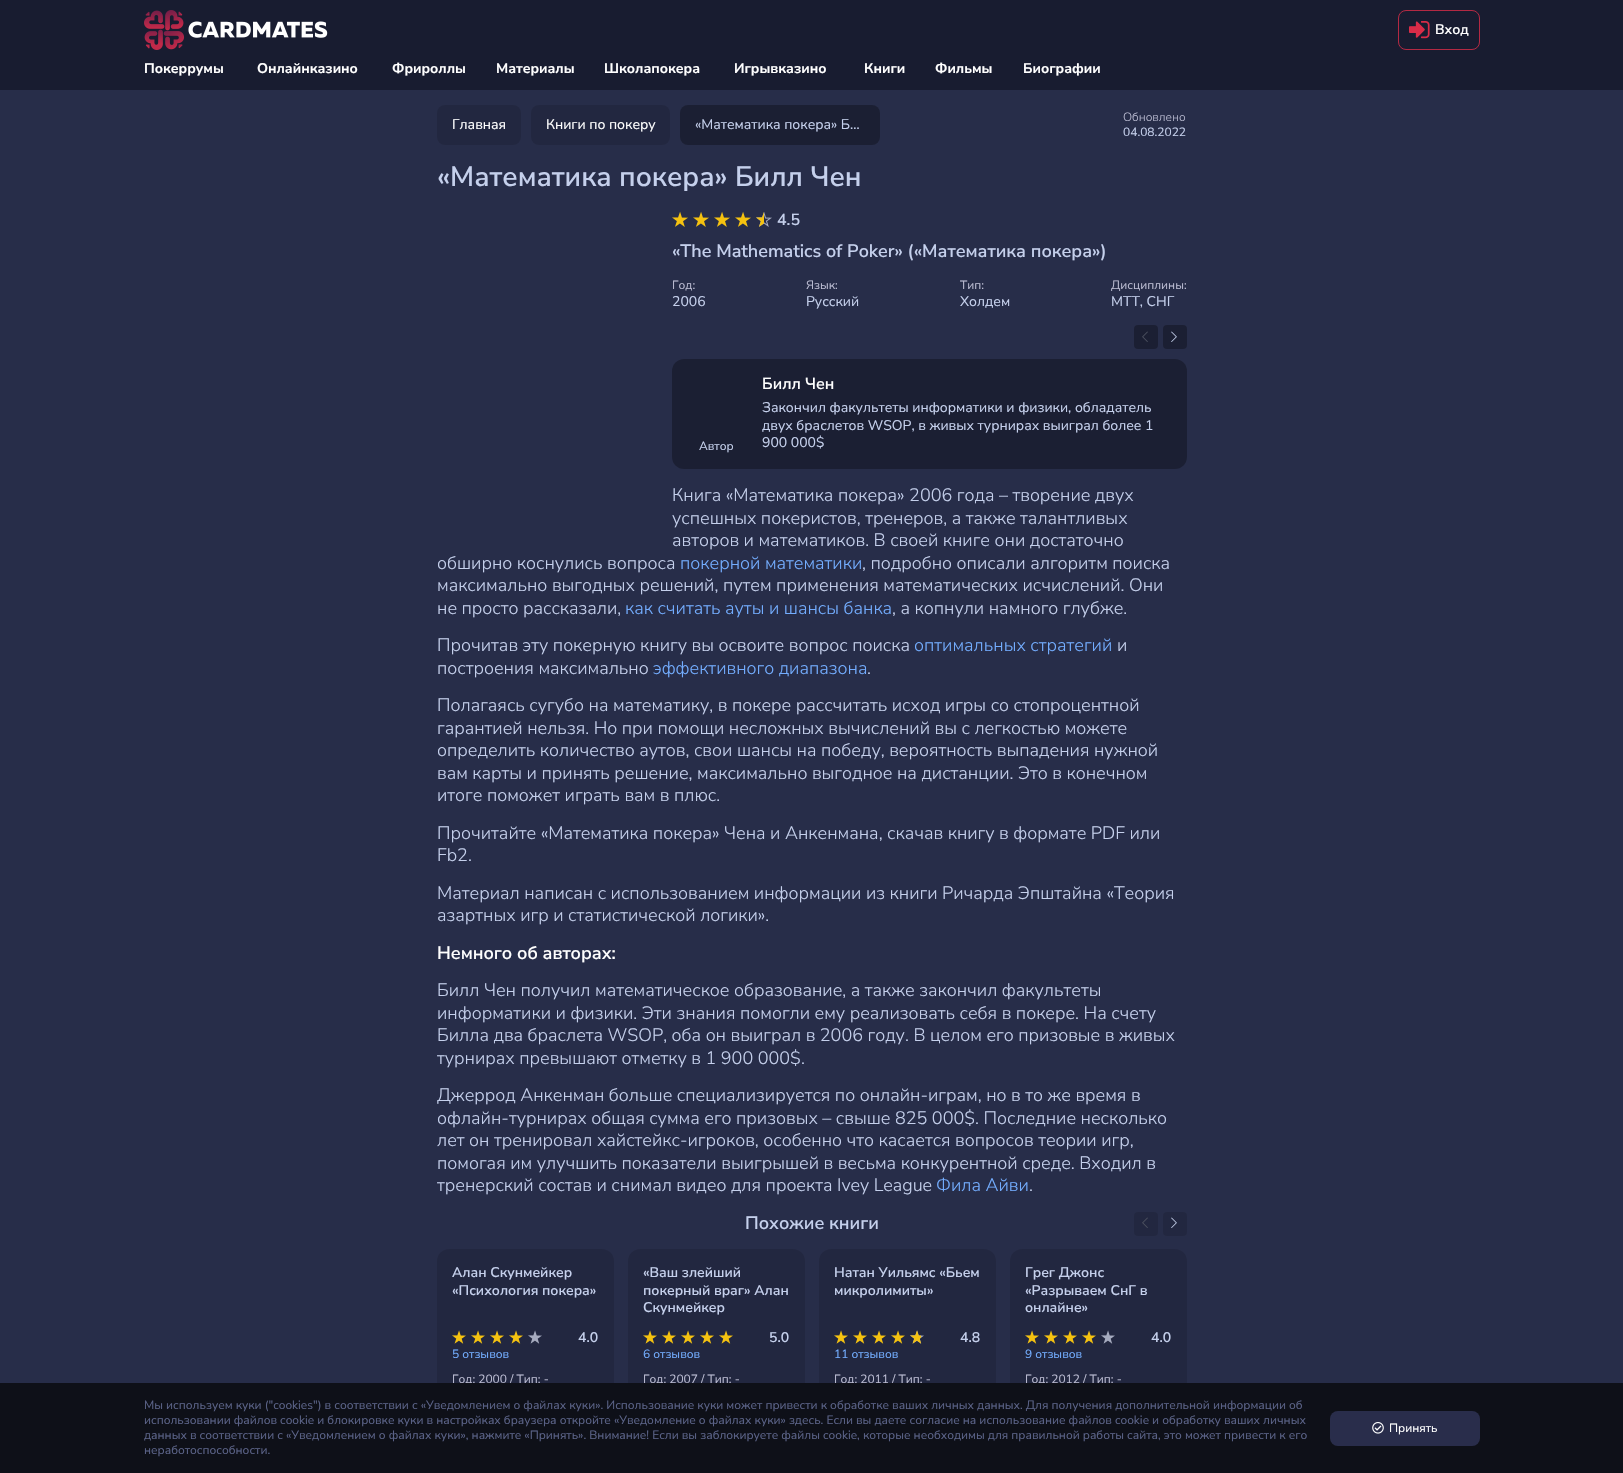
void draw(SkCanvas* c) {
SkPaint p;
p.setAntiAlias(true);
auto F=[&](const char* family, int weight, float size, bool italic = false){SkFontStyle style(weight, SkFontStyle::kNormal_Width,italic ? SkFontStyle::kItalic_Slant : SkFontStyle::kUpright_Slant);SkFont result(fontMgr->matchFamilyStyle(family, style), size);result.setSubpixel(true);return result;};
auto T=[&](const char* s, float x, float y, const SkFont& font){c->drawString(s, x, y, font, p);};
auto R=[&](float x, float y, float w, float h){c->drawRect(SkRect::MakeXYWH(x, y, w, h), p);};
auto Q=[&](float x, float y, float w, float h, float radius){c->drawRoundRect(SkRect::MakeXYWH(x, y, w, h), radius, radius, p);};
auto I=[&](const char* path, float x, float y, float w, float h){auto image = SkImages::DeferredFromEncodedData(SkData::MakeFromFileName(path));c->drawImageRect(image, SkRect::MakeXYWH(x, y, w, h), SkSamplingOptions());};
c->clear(0xff272d49);
p.setColor(0xff181c30);
R(0,0,1623,90);
I("1.png",144,10,184,40);
p.setStroke(true);
p.setStrokeWidth(1);
p.setColor(0xffb32943);
c->drawRoundRect(SkRect::MakeXYWH(1398.5,10.5,81,39),7.5,7.5,p);
I("2.png",1409,21,21,18);
auto f1 = F("Nunito Sans",600,14);
p.setStroke(false);
p.setColor(0xffffffff);
T("Вход",1435,34,f1);
auto f2 = F("Nunito Sans",700,14);
T("Покер румы",144,73,f2);
T("Онлайн казино",257,73,f2);
T("Фрироллы",392,73,f2);
T("Материалы",496,73,f2);
T("Школа покера",604,73,f2);
T("Игры в казино",734,73,f2);
T("Книги",864,73,f2);
T("Фильмы",935,73,f2);
T("Биографии",1023,73,f2);
p.setColor(0xff222740);
Q(437,105,84,40,8);
auto f3 = F("Nunito Sans",400,14);
p.setColor(0xffffffff);
T("Главная",452,129,f3);
p.setColor(0xff222740);
Q(531,105,139,40,8);
p.setColor(0xffffffff);
T("Книги по покеру",546,129,f3);
p.setColor(0xff1b1f33);
Q(680,105,200,40,8);
p.setColor(0xffc5d0ec);
T("«Математика покера» Б…",695,129,f3);
auto f4 = F("Nunito Sans",300,12);
p.setColor(0xffbbbcd2);
T("Обновлено",1123,121,f4);
auto f5 = F("Nunito Sans",400,12);
p.setColor(0xffc5d0ec);
T("04.08.2022",1123,136,f5);
auto f6 = F("Nunito Sans",600,28);
T("«Математика покера» Билл Чен",437,186,f6);
I("3.png",672,211,16,16);
I("3.png",693,211,16,16);
I("3.png",714,211,16,16);
I("3.png",735,211,16,16);
I("4.png",756,212,16,15);
I("5.png",756,212,8,15);
auto f7 = F("Nunito Sans",600,16);
T("4.5",777,225,f7);
auto f8 = F("Nunito Sans",600,18);
T("«The Mathematics of Poker» («Математика покера»)",672,257,f8);
p.setColor(0xffbbbcd2);
T("Год:",672,289,f5);
p.setColor(0xffc5d0ec);
T("2006",672,306,f3);
p.setColor(0xffbbbcd2);
T("Язык:",806,289,f5);
p.setColor(0xffc5d0ec);
T("Русский",806,306,f3);
p.setColor(0xffbbbcd2);
T("Тип:",960,289,f5);
p.setColor(0xffc5d0ec);
T("Холдем",960,306,f3);
p.setColor(0xffbbbcd2);
T("Дисциплины:",1111,289,f5);
p.setColor(0xffc5d0ec);
T("МТТ, СНГ",1111,306,f3);
p.setColor(0xff1b1f33);
Q(1134,325,24,24,4);
I("6.png",1142,331,6,11);
Q(1163,325,24,24,4);
I("7.png",1171,331,6,11);
Q(672,359,515,110,12);
p.setColor(0xffc5d0ec);
T("Автор",699,450,f5);
p.setColor(0xffffffff);
T("Билл Чен",762,389,f7);
p.setColor(0xffc5d0ec);
T("Закончил факультеты информатики и физики, обладатель",762,412,f3);
T("двух браслетов WSOP, в живых турнирах выиграл более 1",762,430,f3);
T("900 000$",762,447,f3);
auto f9 = F("Nunito Sans",300,18);
T("Книга «Математика покера» 2006 года – творение двух",672,501,f9);
T("успешных покеристов, тренеров, а также талантливых",672,524,f9);
T("авторов и математиков. В своей книге они достаточно",672,546,f9);
T("обширно коснулись вопроса",437,569,f9);
p.setColor(0xff73adff);
T("покерной математики",680,569,f9);
p.setColor(0xffc5d0ec);
T(", подробно описали алгоритм поиска",862,569,f9);
T("максимально выгодных решений, путем применения математических исчислений. Они",437,591,f9);
T("не просто рассказали,",437,614,f9);
p.setColor(0xff73adff);
T("как считать ауты и шансы банка",625,614,f9);
p.setColor(0xffc5d0ec);
T(", а копнули намного глубже.",892,614,f9);
T("Прочитав эту покерную книгу вы освоите вопрос поиска",437,651,f9);
p.setColor(0xff73adff);
T("оптимальных стратегий",914,651,f9);
p.setColor(0xffc5d0ec);
T("и",1117,651,f9);
T("построения максимально",437,674,f9);
p.setColor(0xff73adff);
T("эффективного диапазона",653,674,f9);
p.setColor(0xffc5d0ec);
T(".",867,674,f9);
T("Полагаясь сугубо на математику, в покере рассчитать исход игры со стопроцентной",437,711,f9);
T("гарантией нельзя. Но при помощи несложных вычислений вы с легкостью можете",437,734,f9);
T("определить количество аутов, свои шансы на победу, вероятность выпадения нужной",437,756,f9);
T("вам карты и принять решение, максимально выгодное на дистанции. Это в конечном",437,779,f9);
T("итоге поможет играть вам в плюс.",437,801,f9);
T("Прочитайте «Математика покера» Чена и Анкенмана, скачав книгу в формате PDF или",437,839,f9);
T("Fb2.",437,861,f9);
T("Материал написан с использованием информации из книги Ричарда Эпштайна «Теория",437,899,f9);
T("азартных игр и статистической логики».",437,921,f9);
p.setColor(0xffffffff);
T("Немного об авторах:",437,959,f8);
p.setColor(0xffc5d0ec);
T("Билл Чен получил математическое образование, а также закончил факультеты",437,996,f9);
T("информатики и физики. Эти знания помогли ему реализовать себя в покере. На счету",437,1019,f9);
T("Билла два браслета WSOP, оба он выиграл в 2006 году. В целом его призовые в живых",437,1041,f9);
T("турнирах превышают отметку в 1 900 000$.",437,1064,f9);
T("Джеррод Анкенман больше специализируется по онлайн-играм, но в то же время в",437,1101,f9);
T("офлайн-турнирах общая сумма его призовых – свыше 825 000$. Последние несколько",437,1124,f9);
T("лет он тренировал хайстейкс-игроков, особенно что касается вопросов теории игр,",437,1146,f9);
T("помогая им улучшить показатели выигрышей в весьма конкурентной среде. Входил в",437,1169,f9);
T("тренерский состав и снимал видео для проекта Ivey League",437,1191,f9);
p.setColor(0xff73adff);
T("Фила Айви",936,1191,f9);
p.setColor(0xffc5d0ec);
T(".",1029,1191,f9);
T("Похожие книги",745,1229,f8);
p.setColor(0xff222740);
Q(1134,1212,24,24,4);
I("8.png",1142,1217,6,11);
Q(1163,1212,24,24,4);
I("9.png",1171,1217,6,11);
Q(437,1249,177,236,12);
p.setColor(0xffc5d0ec);
T("Алан Скунмейкер",452,1277,f1);
T("«Психология покера»",452,1295,f1);
I("10.png",452,1330,14,14);
I("10.png",471,1330,14,14);
I("10.png",490,1330,14,14);
I("10.png",509,1330,14,14);
I("11.png",528,1330,14,14);
T("4.0",578,1342,f1);
p.setColor(0xff73adff);
T("5 отзывов",452,1358,f5);
p.setColor(0xffbbbcd2);
T("Год: 2000 / Тип: -",452,1383,f5);
p.setColor(0xff222740);
Q(628,1249,177,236,12);
p.setColor(0xffc5d0ec);
T("«Ваш злейший",643,1277,f1);
T("покерный враг» Алан",643,1295,f1);
T("Скунмейкер",643,1312,f1);
I("10.png",643,1330,14,14);
I("10.png",662,1330,14,14);
I("10.png",681,1330,14,14);
I("10.png",700,1330,14,14);
I("10.png",719,1330,14,14);
T("5.0",769,1342,f1);
p.setColor(0xff73adff);
T("6 отзывов",643,1358,f5);
p.setColor(0xffbbbcd2);
T("Год: 2007 / Тип: -",643,1383,f5);
p.setColor(0xff222740);
Q(819,1249,177,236,12);
p.setColor(0xffc5d0ec);
T("Натан Уильямс «Бьем",834,1277,f1);
T("микролимиты»",834,1295,f1);
I("10.png",834,1330,14,14);
I("10.png",853,1330,14,14);
I("10.png",872,1330,14,14);
I("10.png",891,1330,14,14);
I("11.png",910,1330,14,14);
I("12.png",910,1330,11,14);
T("4.8",960,1342,f1);
p.setColor(0xff73adff);
T("11 отзывов",834,1358,f5);
p.setColor(0xffbbbcd2);
T("Год: 2011 / Тип: -",834,1383,f5);
p.setColor(0xff222740);
Q(1010,1249,177,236,12);
p.setColor(0xffc5d0ec);
T("Грег Джонс",1025,1277,f1);
T("«Разрываем СнГ в",1025,1295,f1);
T("онлайне»",1025,1312,f1);
I("10.png",1025,1330,14,14);
I("10.png",1044,1330,14,14);
I("10.png",1063,1330,14,14);
I("10.png",1082,1330,14,14);
I("11.png",1101,1330,14,14);
T("4.0",1151,1342,f1);
p.setColor(0xff73adff);
T("9 отзывов",1025,1358,f5);
p.setColor(0xffbbbcd2);
T("Год: 2012 / Тип: -",1025,1383,f5);
p.setColor(0xff0e1018);
R(0,1383,1623,90);
p.setColor(0xff5b6388);
T("Мы используем куки (\"cookies\") в соответствии с «Уведомлением о файлах куки». Использование куки может привести к обработке ваших личных данных. Для получения дополнительной информации об",144,1409,f5);
T("использовании файлов cookie и блокировке куки в настройках браузера откройте «Уведомление о файлах куки» здесь. Если вы даете согласие на использование файлов cookie и обработку ваших личных",144,1424,f5);
T("данных в соответствии с «Уведомлением о файлах куки», нажмите «Принять». Внимание! Если вы заблокируете файлы cookie, которые необходимы для правильной работы сайта, это может привести к его",144,1439,f5);
T("неработоспособности.",144,1454,f5);
p.setColor(0xff292d4b);
Q(1330,1411,150,35,8);
I("13.png",1372,1422,12,12);
p.setColor(0xffffffff);
T("Принять",1389,1432,f5);
}
